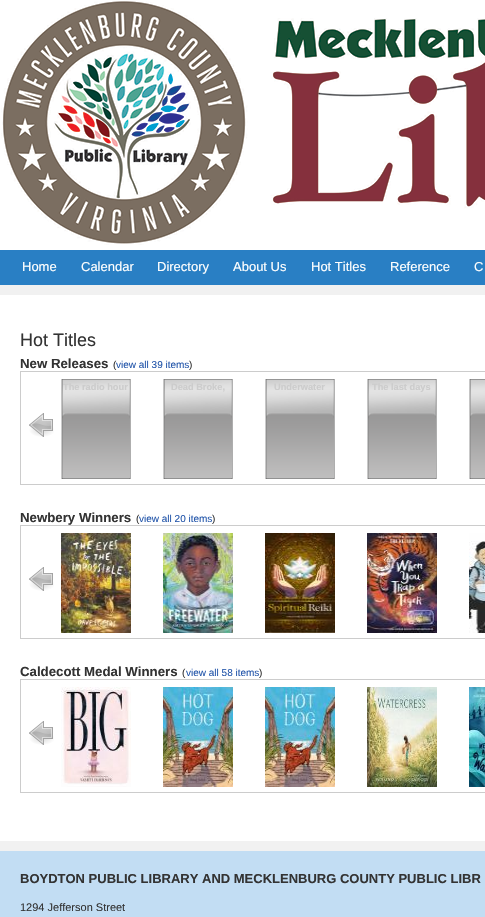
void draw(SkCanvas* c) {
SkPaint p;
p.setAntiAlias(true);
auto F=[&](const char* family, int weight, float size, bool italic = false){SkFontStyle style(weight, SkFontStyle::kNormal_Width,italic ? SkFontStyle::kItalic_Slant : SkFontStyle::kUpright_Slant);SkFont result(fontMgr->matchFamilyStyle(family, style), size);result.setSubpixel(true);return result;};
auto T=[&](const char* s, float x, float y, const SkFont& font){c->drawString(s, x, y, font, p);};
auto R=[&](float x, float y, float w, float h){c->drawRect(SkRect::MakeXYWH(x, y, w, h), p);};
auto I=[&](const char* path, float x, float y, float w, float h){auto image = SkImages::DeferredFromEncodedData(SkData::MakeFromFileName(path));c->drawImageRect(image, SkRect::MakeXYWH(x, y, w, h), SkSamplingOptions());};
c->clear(0xfff1f1f1);
p.setColor(0xffffffff);
R(0,0,485,250);
I("1.png",1,1,484,244);
p.setColor(0xff297fc4);
R(0,250,485,35);
auto f1 = F("Liberation Sans",400,13);
p.setColor(0xffffffff);
T("Home",22,271,f1);
T("Calendar",81,271,f1);
T("Directory",157,271,f1);
T("About Us",233,271,f1);
T("Hot Titles",311,271,f1);
T("Reference",390,271,f1);
T("C",474,271,f1);
R(0,295,485,546);
auto f2 = F("Liberation Sans",400,18);
p.setColor(0xff333333);
T("Hot Titles",20,346,f2);
auto f3 = F("Liberation Sans",700,13.25);
T("New Releases",20,368,f3);
auto f4 = F("Liberation Sans",400,10);
T("(",113,368,f4);
p.setColor(0xff2255aa);
T("view all 39 items",116,368,f4);
p.setColor(0xff333333);
T(")",189,368,f4);
p.setStroke(true);
p.setStrokeWidth(1);
p.setColor(0xffcccccc);
c->drawRect(SkRect::MakeXYWH(20.5,371.5,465,113),p);
I("2.png",61,379,70,100);
auto f5 = F("Liberation Sans",700,9.25);
p.setStroke(false);
T("The radio hour",63,390,f5);
I("2.png",163,379,70,100);
T("Dead Broke,",171,390,f5);
I("2.png",265,379,70,100);
T("Underwater",274,390,f5);
I("2.png",367,379,70,100);
T("The last days",372,390,f5);
I("3.png",469,379,16,100);
I("4.png",29,413,25,24);
p.setColor(0xff333333);
T("Newbery Winners",20,522,f3);
T("(",136,522,f4);
p.setColor(0xff2255aa);
T("view all 20 items",139,522,f4);
p.setColor(0xff333333);
T(")",212,522,f4);
p.setStroke(true);
p.setColor(0xffcccccc);
c->drawRect(SkRect::MakeXYWH(20.5,525.5,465,113),p);
I("4.png",29,567,25,24);
I("5.png",61,533,70,100);
I("6.png",163,533,70,100);
I("7.png",265,533,70,100);
I("8.png",367,533,70,100);
I("9.png",469,533,16,100);
p.setStroke(false);
p.setColor(0xff333333);
T("Caldecott Medal Winners",20,676,f3);
T("(",182,676,f4);
p.setColor(0xff2255aa);
T("view all 58 items",186,676,f4);
p.setColor(0xff333333);
T(")",259,676,f4);
p.setStroke(true);
p.setColor(0xffcccccc);
c->drawRect(SkRect::MakeXYWH(20.5,679.5,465,113),p);
I("4.png",29,721,25,24);
I("10.png",61,687,70,100);
I("11.png",163,687,70,100);
I("12.png",265,687,70,100);
I("13.png",367,687,70,100);
I("14.png",469,687,16,100);
p.setStroke(false);
p.setColor(0xffc2ddf3);
R(0,851,485,66);
auto f6 = F("Liberation Sans",700,13);
p.setColor(0xff333333);
T("BOYDTON PUBLIC LIBRARY AND MECKLENBURG COUNTY PUBLIC LIBR",20,883,f6);
auto f7 = F("Liberation Sans",400,11);
T("1294 Jefferson Street",20,911,f7);
}
